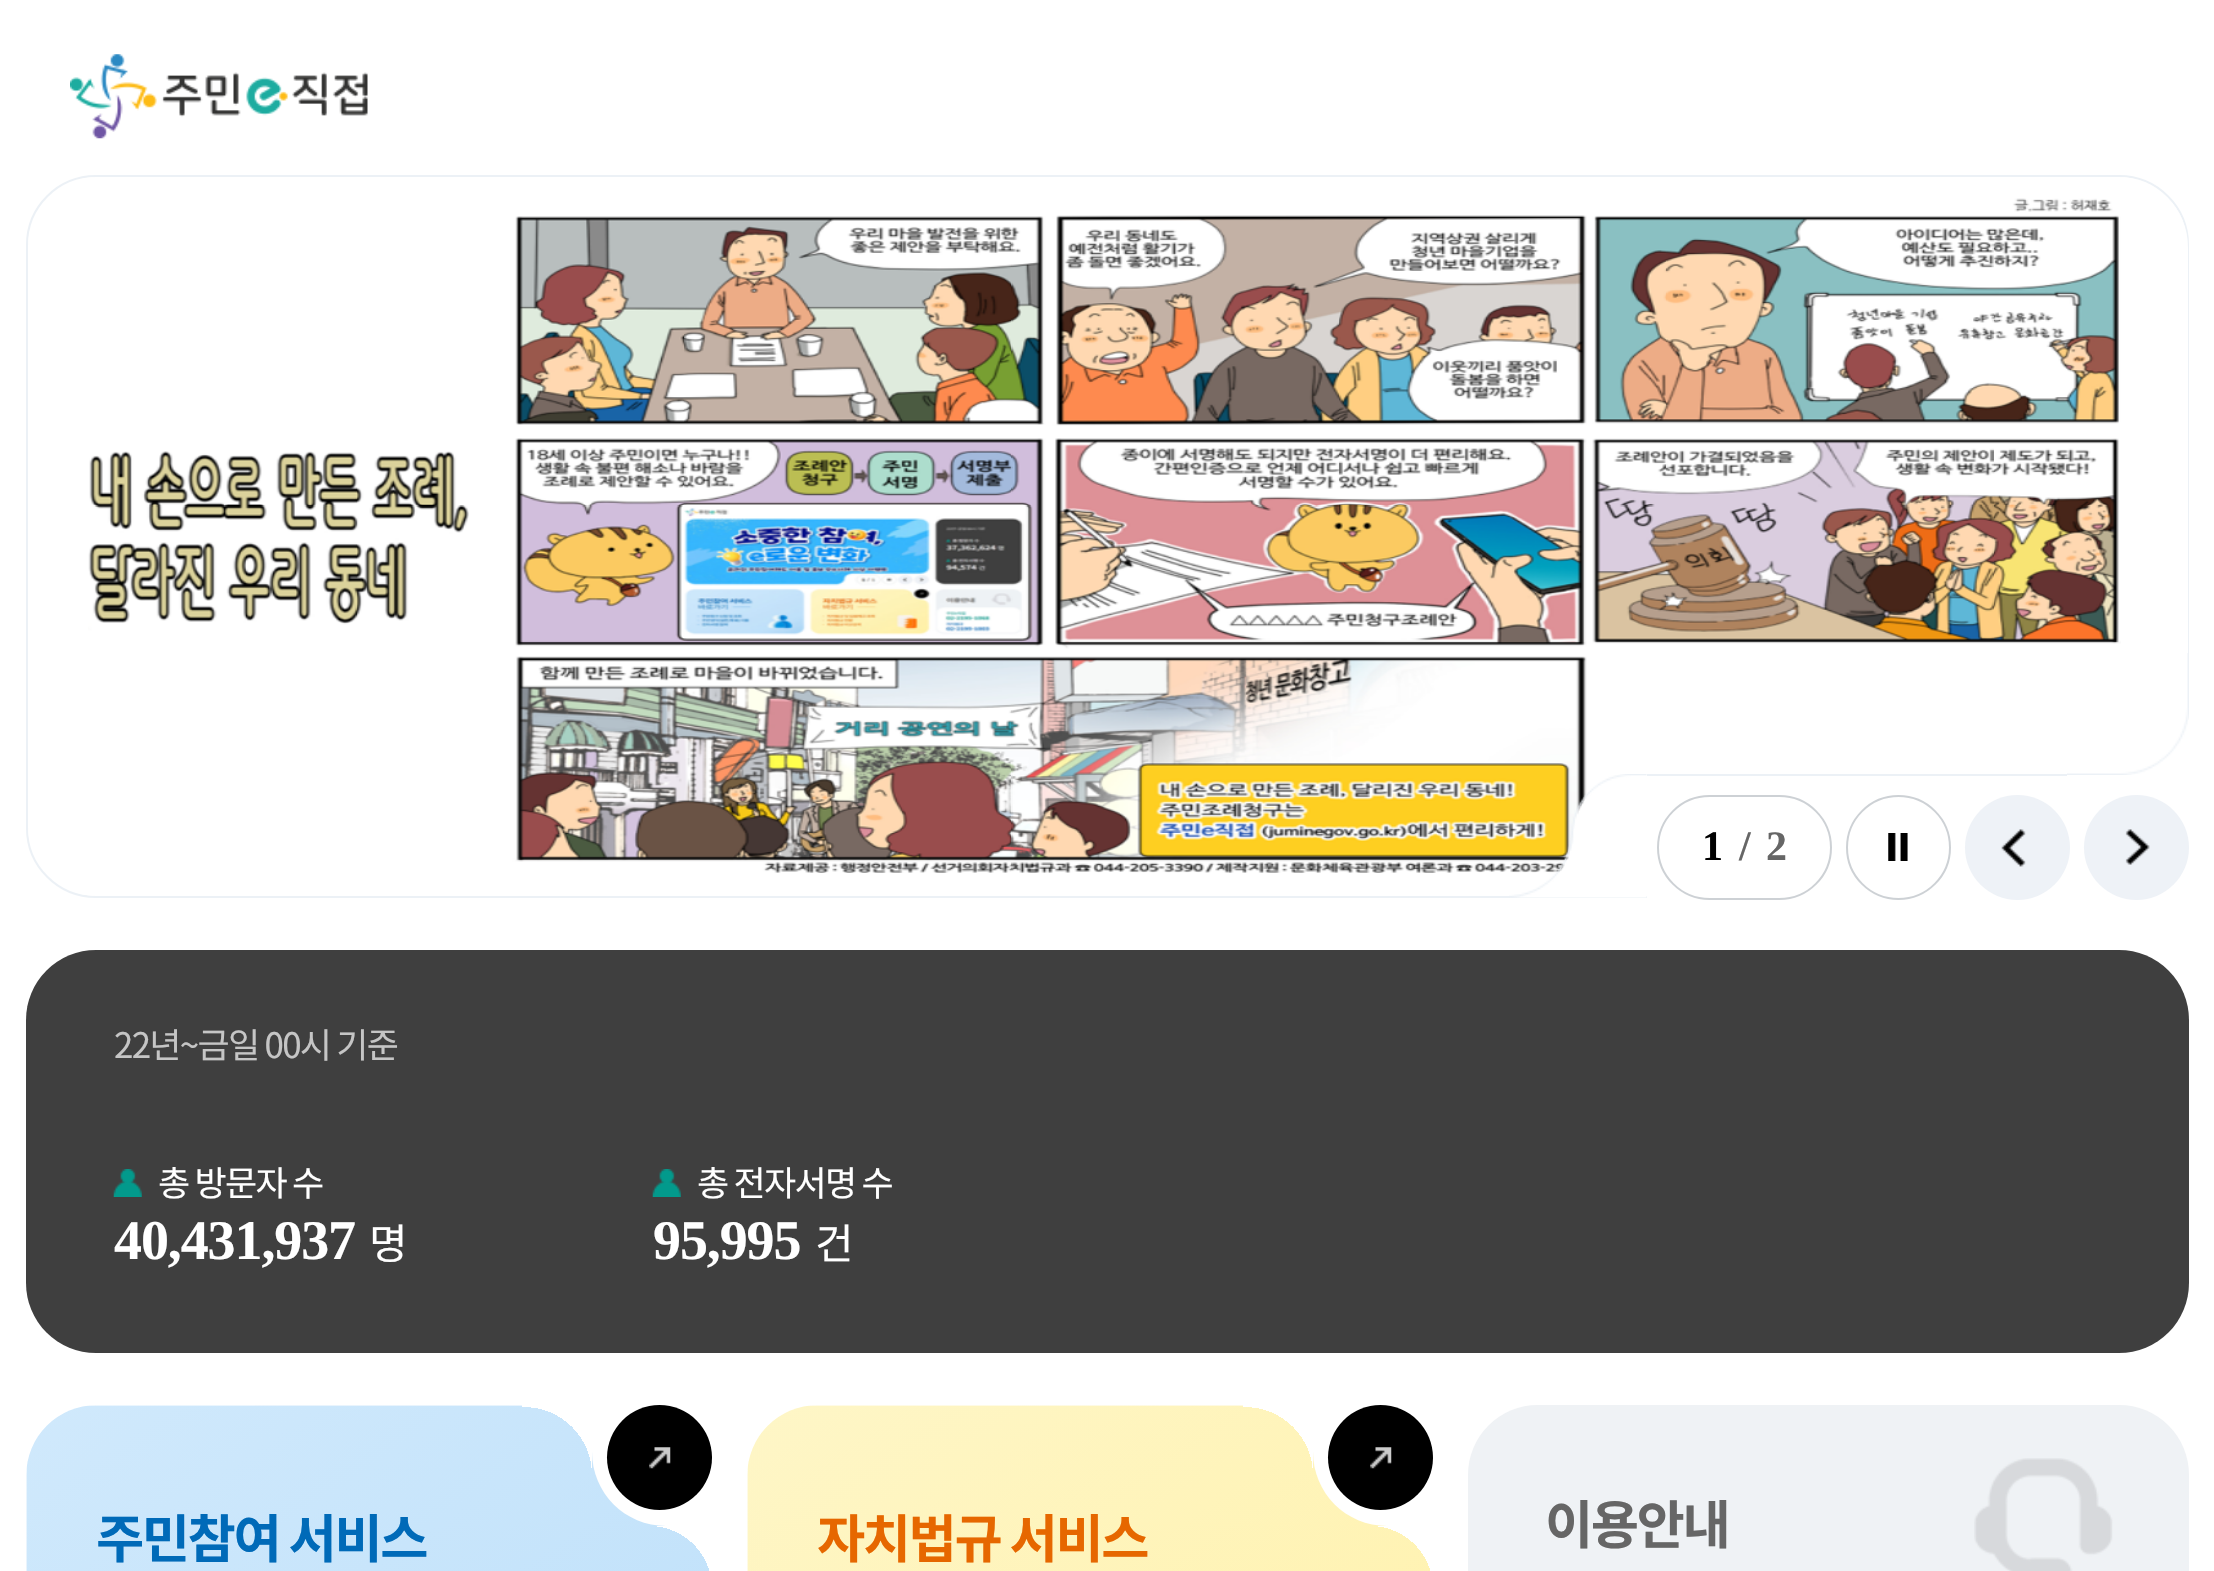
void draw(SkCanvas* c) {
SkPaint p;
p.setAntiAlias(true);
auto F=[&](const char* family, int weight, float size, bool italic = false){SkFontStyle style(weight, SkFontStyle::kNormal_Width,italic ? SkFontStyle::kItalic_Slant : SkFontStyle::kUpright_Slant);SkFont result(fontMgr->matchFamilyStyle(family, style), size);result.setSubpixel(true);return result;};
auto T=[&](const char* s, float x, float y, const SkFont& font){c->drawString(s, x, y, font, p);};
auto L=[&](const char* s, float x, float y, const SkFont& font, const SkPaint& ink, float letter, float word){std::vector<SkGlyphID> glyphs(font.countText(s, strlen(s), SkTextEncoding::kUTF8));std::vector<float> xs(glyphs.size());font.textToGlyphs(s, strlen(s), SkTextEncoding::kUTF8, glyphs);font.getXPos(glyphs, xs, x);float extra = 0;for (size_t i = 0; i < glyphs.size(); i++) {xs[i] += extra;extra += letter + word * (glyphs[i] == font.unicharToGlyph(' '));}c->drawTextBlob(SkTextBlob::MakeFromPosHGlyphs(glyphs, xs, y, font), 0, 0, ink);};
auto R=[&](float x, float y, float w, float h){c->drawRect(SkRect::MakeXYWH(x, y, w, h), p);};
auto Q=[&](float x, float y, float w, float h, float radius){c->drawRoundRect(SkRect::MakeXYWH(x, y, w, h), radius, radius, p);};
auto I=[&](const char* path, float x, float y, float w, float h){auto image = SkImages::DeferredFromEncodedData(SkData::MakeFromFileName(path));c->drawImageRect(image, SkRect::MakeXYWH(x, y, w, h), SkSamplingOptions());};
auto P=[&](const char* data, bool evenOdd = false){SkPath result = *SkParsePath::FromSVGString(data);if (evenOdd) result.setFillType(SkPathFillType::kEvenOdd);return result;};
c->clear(0xffffffff);
I("1.png",70,54,298,85);
p.setStroke(true);
p.setStrokeWidth(2);
p.setColor(0xffecf1f6);
c->drawRoundRect(SkRect::MakeXYWH(27,176,2161,721),69,69,p);
p.setStroke(false);
p.setColor(0xffffffff);
Q(28,177,2160,719,70);
I("2.png",88,198,2033,675);
R(1647,774,542,124);
I("3.png",2067,653,122,122);
I("4.png",1509,774,138,124);
p.setColor(0xffecf1f6);
R(1647,774,420,2);
p.setStroke(true);
p.setColor(0xffcdd1d5);
c->drawRoundRect(SkRect::MakeXYWH(1658,796,173,103),51.5,51.5,p);
auto f1 = F("Liberation Serif",700,42);
p.setStroke(false);
p.setColor(0xff000000);
T("1",1702,860,f1);
p.setColor(0xff666666);
T("/",1739,860,f1);
T("2",1766,860,f1);
I("5.png",1888,833,20,28);
p.setStroke(true);
p.setColor(0xffcdd1d5);
c->drawCircle(1898.5,847.5,51.5,p);
p.setStroke(false);
p.setColor(0xffeef2f7);
c->drawCircle(2017.5,847.5,52.5,p);
I("6.png",2001,829,25,38);
c->drawCircle(2136.5,847.5,52.5,p);
I("7.png",2125,829,25,36);
p.setColor(0xff3f3f3f);
Q(26,950,2163,403,70);
auto f2 = F("Noto Sans KR",400,35);
p.setColor(0xffc5c5c5);
L("22년~금일 00시 기준",114,1058,f2,p,-1.75,0);
I("8.png",113,1169,29,28);
p.setColor(0xffffffff);
L("총 방문자 수",158,1196,f2,p,-1.75,0);
auto f3 = F("Liberation Serif",700,56);
L("40,431,937",114,1259,f3,p,-1.1,0);
auto f4 = F("Noto Sans KR",400,42);
T("명",369,1259,f4);
I("8.png",652,1169,29,28);
L("총 전자서명 수",697,1196,f2,p,-1.75,0);
L("95,995",653,1259,f3,p,-1.1,0);
T("건",815,1259,f4);
I("9.png",26,1405,686,166);
c->save();
c->clipRect(SkRect::MakeXYWH(26,1405,721,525));
c->drawPath(P("M592 1404h48c41 0 74 33 74 74v48h-48c-41 0-74-33-74-74z"),p);
c->restore();
{
const SkColor colors[] = {0x00ffffff,0xffffffff};
const float stops[] = {.7,.7};
p.setShader(SkGradientShader::MakeRadial({524,1475}, 97, colors, stops, 2, SkTileMode::kClamp));
p.setAlpha(255);
}
R(522,1405,70,63);
p.setShader(nullptr);
p.setColor(0xff000000);
c->drawCircle(659.5,1457.5,52.5,p);
I("10.png",649,1447,22,22);
auto f5 = F("Noto Sans KR",700,52.5);
p.setColor(0xff006ab8);
L("주민참여 서비스",96,1558,f5,p,-2.5,0);
I("11.png",747,1405,686,166);
c->save();
c->clipRect(SkRect::MakeXYWH(747,1405,721,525));
p.setColor(0xffffffff);
c->drawPath(P("M1313 1404h48c41 0 74 33 74 74v48h-48c-41 0-74-33-74-74z"),p);
c->restore();
{
const SkColor colors[] = {0x00ffffff,0xffffffff};
const float stops[] = {.7,.7};
p.setShader(SkGradientShader::MakeRadial({1245,1475}, 97, colors, stops, 2, SkTileMode::kClamp));
p.setAlpha(255);
}
R(1243,1405,70,63);
p.setShader(nullptr);
p.setColor(0xff000000);
c->drawCircle(1380.5,1457.5,52.5,p);
I("10.png",1370,1447,22,22);
p.setColor(0xffe66700);
L("자치법규 서비스",817,1558,f5,p,-2.5,0);
p.setColor(0xffeff2f5);
Q(1468,1405,721,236,70);
p.setColor(0xff666666);
L("이용안내",1545,1544,f5,p,-2.5,0);
I("12.png",1974,1458,139,113);
}
